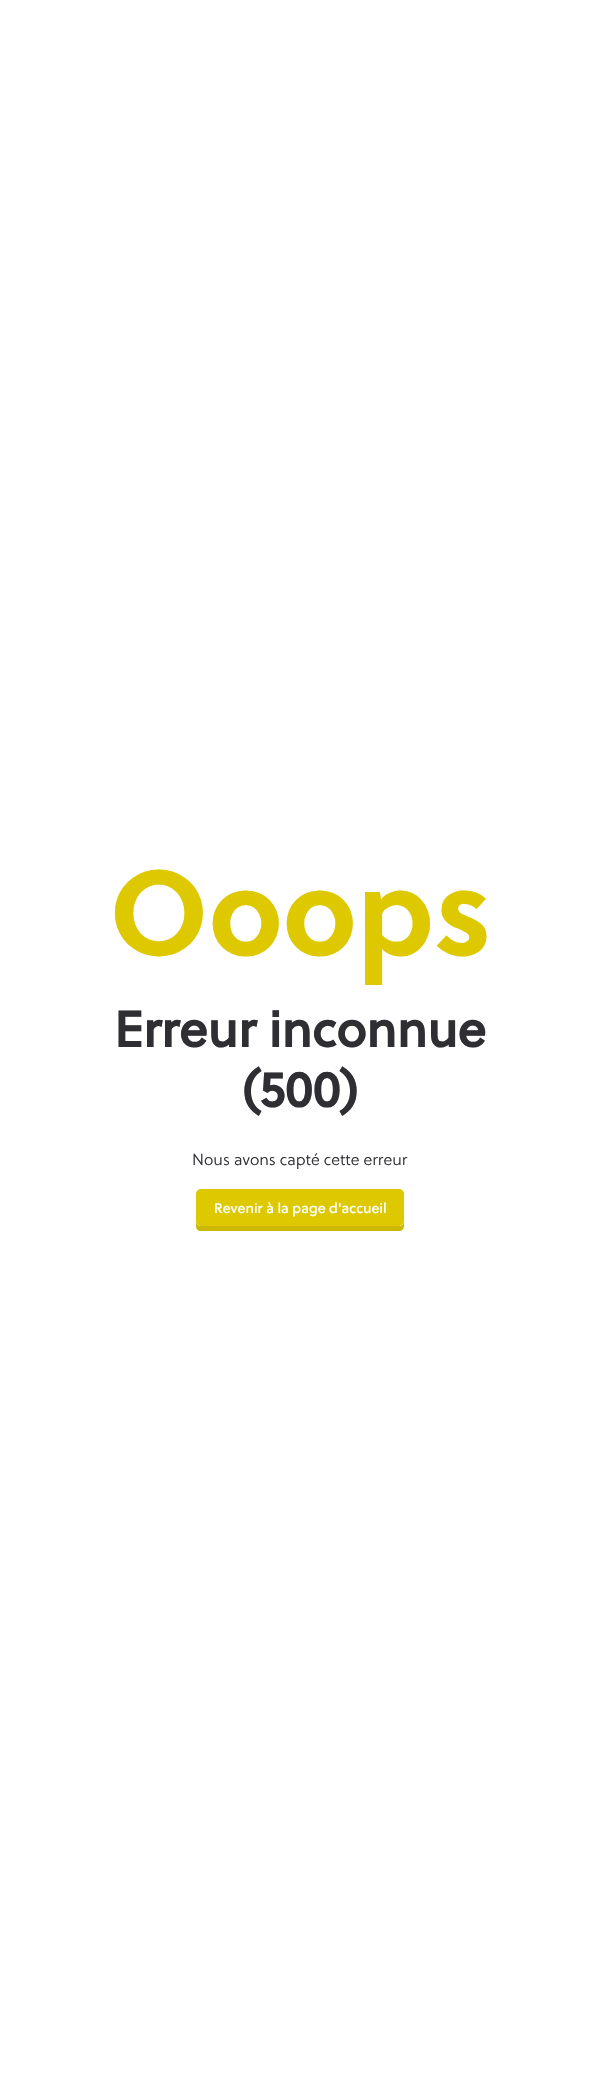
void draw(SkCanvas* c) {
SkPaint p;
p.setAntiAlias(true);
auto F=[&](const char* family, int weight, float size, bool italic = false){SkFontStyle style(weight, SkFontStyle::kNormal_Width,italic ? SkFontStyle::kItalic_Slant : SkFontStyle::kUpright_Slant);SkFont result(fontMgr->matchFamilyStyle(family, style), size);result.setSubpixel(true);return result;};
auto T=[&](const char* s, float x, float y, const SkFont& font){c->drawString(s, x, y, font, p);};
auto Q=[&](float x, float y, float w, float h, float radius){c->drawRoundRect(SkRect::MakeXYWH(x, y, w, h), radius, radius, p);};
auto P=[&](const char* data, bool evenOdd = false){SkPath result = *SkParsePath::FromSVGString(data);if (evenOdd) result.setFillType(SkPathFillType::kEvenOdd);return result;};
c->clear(0xffffffff);
auto f1 = F("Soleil",700,120);
p.setColor(0xffdec800);
T("Ooops",109,955,f1);
auto f2 = F("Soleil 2",700,50);
p.setColor(0xff2f2e33);
T("Erreur inconnue",114,1047,f2);
T("(500)",242,1107,f2);
auto f3 = F("Soleil",300,16);
T("Nous avons capté cette erreur",192,1165,f3);
p.setColor(0xffccb803);
c->drawPath(P("M196 1221v5c0 3 2 5 5 5h198c3 0 5-2 5-5v-5c0 3-2 5-5 5h-198c-3 0-5-2-5-5z"),p);
p.setColor(0xffdec800);
Q(196,1189,208,37,5);
auto f4 = F("Soleil",400,14);
p.setColor(0xffffffff);
T("Revenir à la page d'accueil",214,1213,f4);
}
